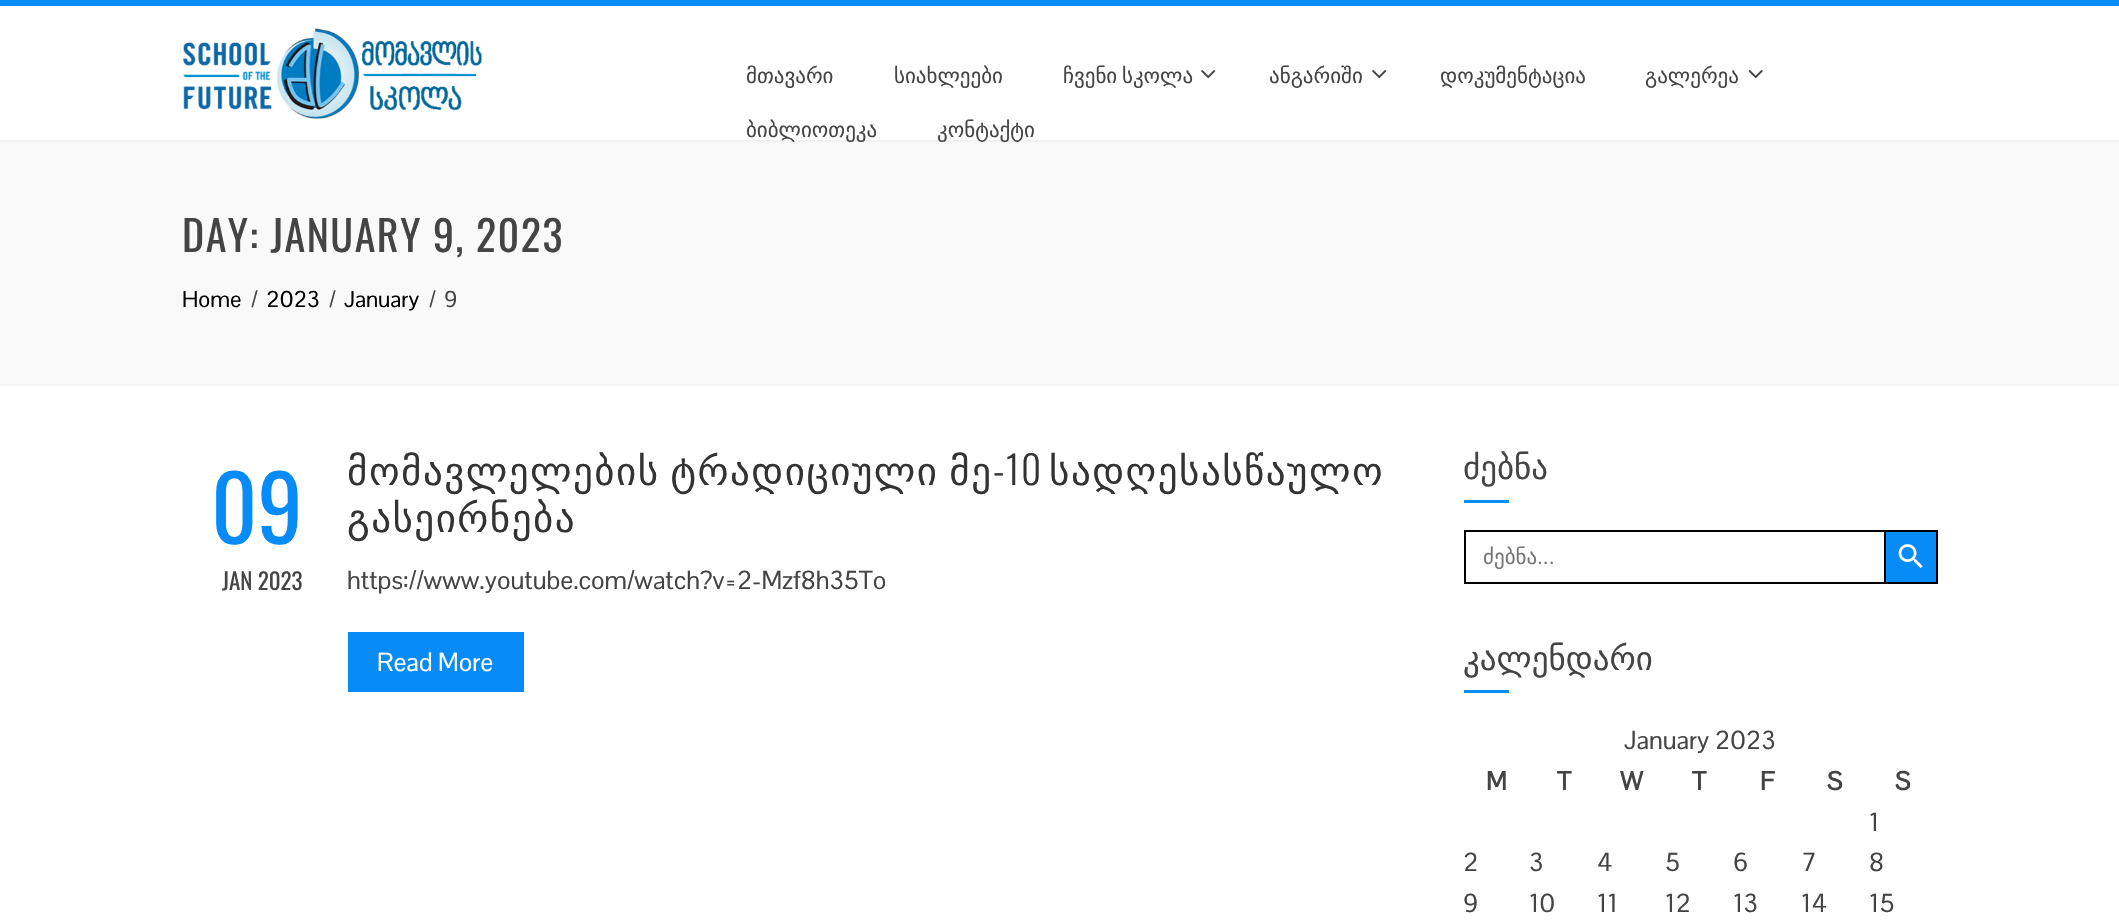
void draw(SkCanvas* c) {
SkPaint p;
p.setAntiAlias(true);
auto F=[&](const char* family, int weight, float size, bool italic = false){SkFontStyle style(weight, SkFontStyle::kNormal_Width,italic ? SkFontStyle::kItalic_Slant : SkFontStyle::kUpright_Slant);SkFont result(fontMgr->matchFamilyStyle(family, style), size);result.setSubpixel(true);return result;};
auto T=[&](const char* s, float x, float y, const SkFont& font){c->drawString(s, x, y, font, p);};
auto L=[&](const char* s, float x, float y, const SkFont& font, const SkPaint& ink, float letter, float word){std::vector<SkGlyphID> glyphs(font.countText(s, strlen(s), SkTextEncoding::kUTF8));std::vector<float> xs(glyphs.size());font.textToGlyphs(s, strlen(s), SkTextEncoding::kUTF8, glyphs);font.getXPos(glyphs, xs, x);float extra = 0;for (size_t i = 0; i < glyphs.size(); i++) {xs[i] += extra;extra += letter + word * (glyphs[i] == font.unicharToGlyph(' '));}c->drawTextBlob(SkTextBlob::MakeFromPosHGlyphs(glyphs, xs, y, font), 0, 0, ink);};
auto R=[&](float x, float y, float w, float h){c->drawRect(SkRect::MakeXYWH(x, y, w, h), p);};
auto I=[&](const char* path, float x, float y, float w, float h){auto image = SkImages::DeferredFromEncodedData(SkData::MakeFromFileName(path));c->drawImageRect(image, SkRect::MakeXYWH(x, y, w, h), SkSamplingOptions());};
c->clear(0xffffffff);
p.setColor(0xff078bf7);
R(0,0,2119,6);
p.setColor(0xfff1f1f1);
R(0,140,2119,2);
I("1.png",183,28,299,91);
auto f1 = F("DejaVu Sans",400,21);
p.setColor(0xff444444);
T("მთავარი",746,83,f1);
T("სიახლეები",894,83,f1);
L("ჩვენი სკოლა",1063,83,f1,p,0,-2);
I("2.png",1201,70,15,9);
T("ანგარიში",1269,83,f1);
I("2.png",1372,70,15,9);
T("დოკუმენტაცია",1440,83,f1);
T("გალერეა",1645,83,f1);
I("3.png",1748,70,15,9);
T("ბიბლიოთეკა",746,137,f1);
T("კონტაქტი",937,137,f1);
p.setColor(0xfff9f9f9);
R(0,142,2119,244);
auto f2 = F("Oswald",400,42);
p.setColor(0xff444444);
L("DAY: JANUARY 9, 2023",182,252,f2,p,1.5,0);
auto f3 = F("Pontano Sans",400,22.5);
p.setColor(0xff000000);
T("Home",182,307,f3);
p.setColor(0xff444444);
T("/",251,307,f3);
p.setColor(0xff000000);
T("2023",266,307,f3);
p.setColor(0xff444444);
T("/",329,307,f3);
p.setColor(0xff000000);
T("January",344,307,f3);
p.setColor(0xff444444);
T("/",429,307,f3);
T("9",444,307,f3);
auto f4 = F("Oswald",400,90);
p.setColor(0xff078bf7);
T("09",211,544,f4);
auto f5 = F("Oswald",400,23);
p.setColor(0xff444444);
T("JAN 2023",222,590,f5);
auto f6 = F("DejaVu Sans",400,39);
p.setColor(0xff333333);
L("მომავლელების ტრადიციული მე",347,485,f6,p,1.5,-3);
auto f7 = F("Oswald",300,39);
L("-10",993,485,f7,p,1.5,0);
L("სადღესასწაულო",1049,485,f6,p,1.5,0);
L("გასეირნება",347,532,f6,p,1.5,0);
auto f8 = F("Pontano Sans",400,25.5);
p.setColor(0xff444444);
T("https://www.youtube.com/watch?v=2-Mzf8h35To",347,589,f8);
p.setColor(0xff078bf7);
R(348,632,176,60);
p.setColor(0xffffffff);
T("Read More",377,671,f8);
auto f9 = F("DejaVu Sans",400,33);
p.setColor(0xff444444);
T("ძებნა",1463,479,f9);
p.setColor(0xff078bf7);
R(1464,500,45,3);
p.setColor(0xff000000);
R(1464,530,420,2);
R(1464,582,420,2);
R(1464,530,2,54);
p.setColor(0xff757575);
T("ძებნა",1483,564,f1);
auto f10 = F("Liberation Sans",400,21);
T("...",1537,564,f10);
p.setColor(0xff078bf7);
c->drawRect(SkRect::MakeXYWH(1885,531,52,52),p);
p.setStroke(true);
p.setStrokeWidth(2);
p.setColor(0xff000000);
c->drawRect(SkRect::MakeXYWH(1885,531,52,52),p);
I("4.png",1898,544,25,25);
p.setStroke(false);
p.setColor(0xff444444);
T("კალენდარი",1463,670,f9);
p.setColor(0xff078bf7);
R(1464,690,45,3);
p.setColor(0xff444444);
T("January 2023",1624,749,f8);
auto f11 = F("Pontano Sans",700,25.5);
T("M",1486,790,f11);
T("T",1557,790,f11);
T("W",1620,790,f11);
T("T",1692,790,f11);
T("F",1760,790,f11);
T("S",1827,790,f11);
T("S",1895,790,f11);
T("1",1869,831,f8);
T("2",1463,871,f8);
T("3",1529,871,f8);
T("4",1597,871,f8);
T("5",1665,871,f8);
T("6",1733,871,f8);
T("7",1801,871,f8);
T("8",1869,871,f8);
T("9",1463,912,f8);
T("10",1529,912,f8);
T("11",1597,912,f8);
T("12",1665,912,f8);
T("13",1733,912,f8);
T("14",1801,912,f8);
T("15",1869,912,f8);
}
